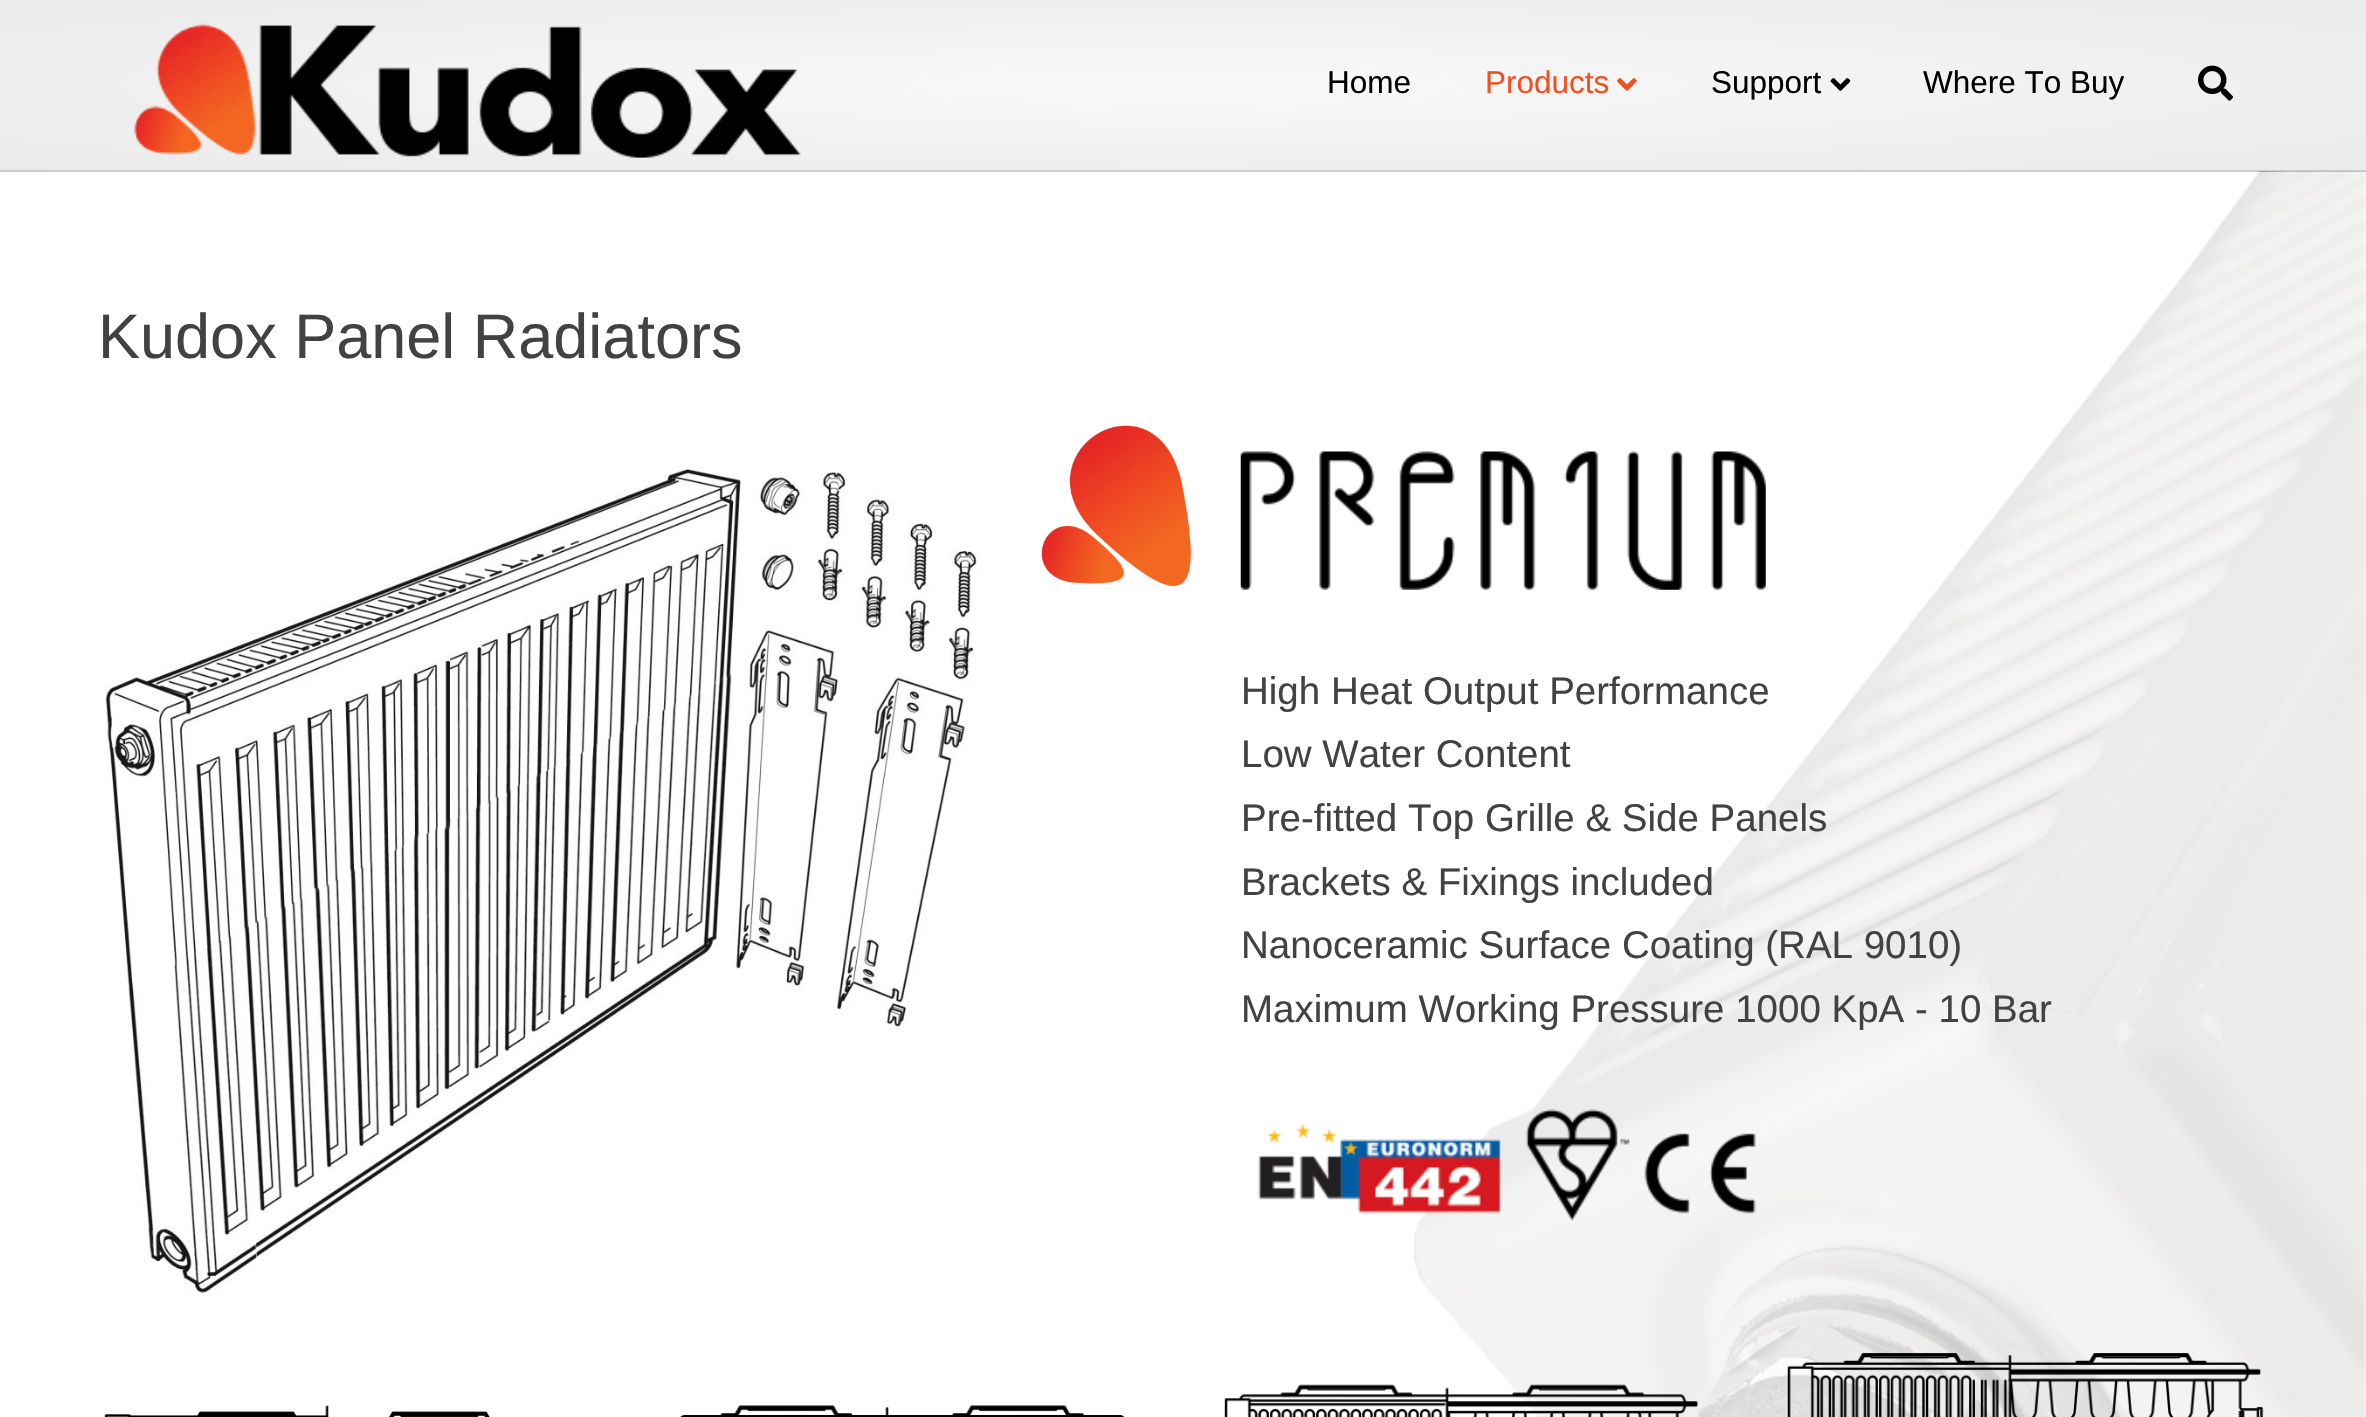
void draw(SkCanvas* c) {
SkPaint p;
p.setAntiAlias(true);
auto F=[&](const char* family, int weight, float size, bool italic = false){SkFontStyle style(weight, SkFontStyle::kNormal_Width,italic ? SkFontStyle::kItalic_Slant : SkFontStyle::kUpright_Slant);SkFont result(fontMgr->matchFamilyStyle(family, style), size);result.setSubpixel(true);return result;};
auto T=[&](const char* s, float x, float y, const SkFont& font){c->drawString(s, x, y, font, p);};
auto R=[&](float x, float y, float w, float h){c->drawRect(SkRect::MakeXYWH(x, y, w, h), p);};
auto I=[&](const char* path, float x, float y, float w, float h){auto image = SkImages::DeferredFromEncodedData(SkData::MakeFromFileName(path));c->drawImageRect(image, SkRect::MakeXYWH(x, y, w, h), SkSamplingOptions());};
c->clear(0xffffffff);
{
const SkColor colors[] = {0xfff9f9f9,0xffeaeaea};
const float stops[] = {0,1};
SkMatrix m = SkMatrix::Translate(1183,86).preScale(1673,121);
p.setShader(SkGradientShader::MakeRadial({0, 0}, 1, colors, stops, 2, SkTileMode::kClamp, 0, &m));
p.setAlpha(255);
}
R(0,0,2366,170);
{
const SkColor colors[] = {0xffd9d9d9,0xffcccccc};
const float stops[] = {0,1};
SkMatrix m = SkMatrix::Translate(1183,86).preScale(1673,121);
p.setShader(SkGradientShader::MakeRadial({0, 0}, 1, colors, stops, 2, SkTileMode::kClamp, 0, &m));
p.setAlpha(255);
}
R(0,170,2366,2);
I("1.png",134,23,667,135);
auto f1 = F("Liberation Sans",400,31.5);
p.setShader(nullptr);
p.setColor(0xff000000);
T("Home",1327,93,f1);
p.setColor(0xfff05122);
T("Products",1485,93,f1);
I("2.png",1617,78,20,13);
p.setColor(0xff000000);
T("Support",1711,93,f1);
I("3.png",1830,78,21,13);
T("Where To Buy",1923,93,f1);
I("4.png",2198,65,35,36);
I("5.png",1414,171,952,1246);
auto f2 = F("Liberation Sans",400,63);
p.setColor(0xff424242);
T("Kudox Panel Radiators",98,358,f2);
I("6.png",105,466,873,831);
I("7.png",1041,425,151,162);
I("8.png",1240,451,526,139);
auto f3 = F("Liberation Sans",400,38.5);
T("High Heat Output Performance",1241,704,f3);
T("Low Water Content",1241,767,f3);
T("Pre-fitted Top Grille & Side Panels",1241,831,f3);
T("Brackets & Fixings included",1241,895,f3);
T("Nanoceramic Surface Coating (RAL 9010)",1241,958,f3);
T("Maximum Working Pressure 1000 KpA - 10 Bar",1241,1022,f3);
I("9.png",1258,1109,498,112);
I("10.png",104,1405,386,12);
I("11.png",680,1405,445,12);
I("12.png",1224,1384,475,33);
I("13.png",1787,1353,477,64);
}
